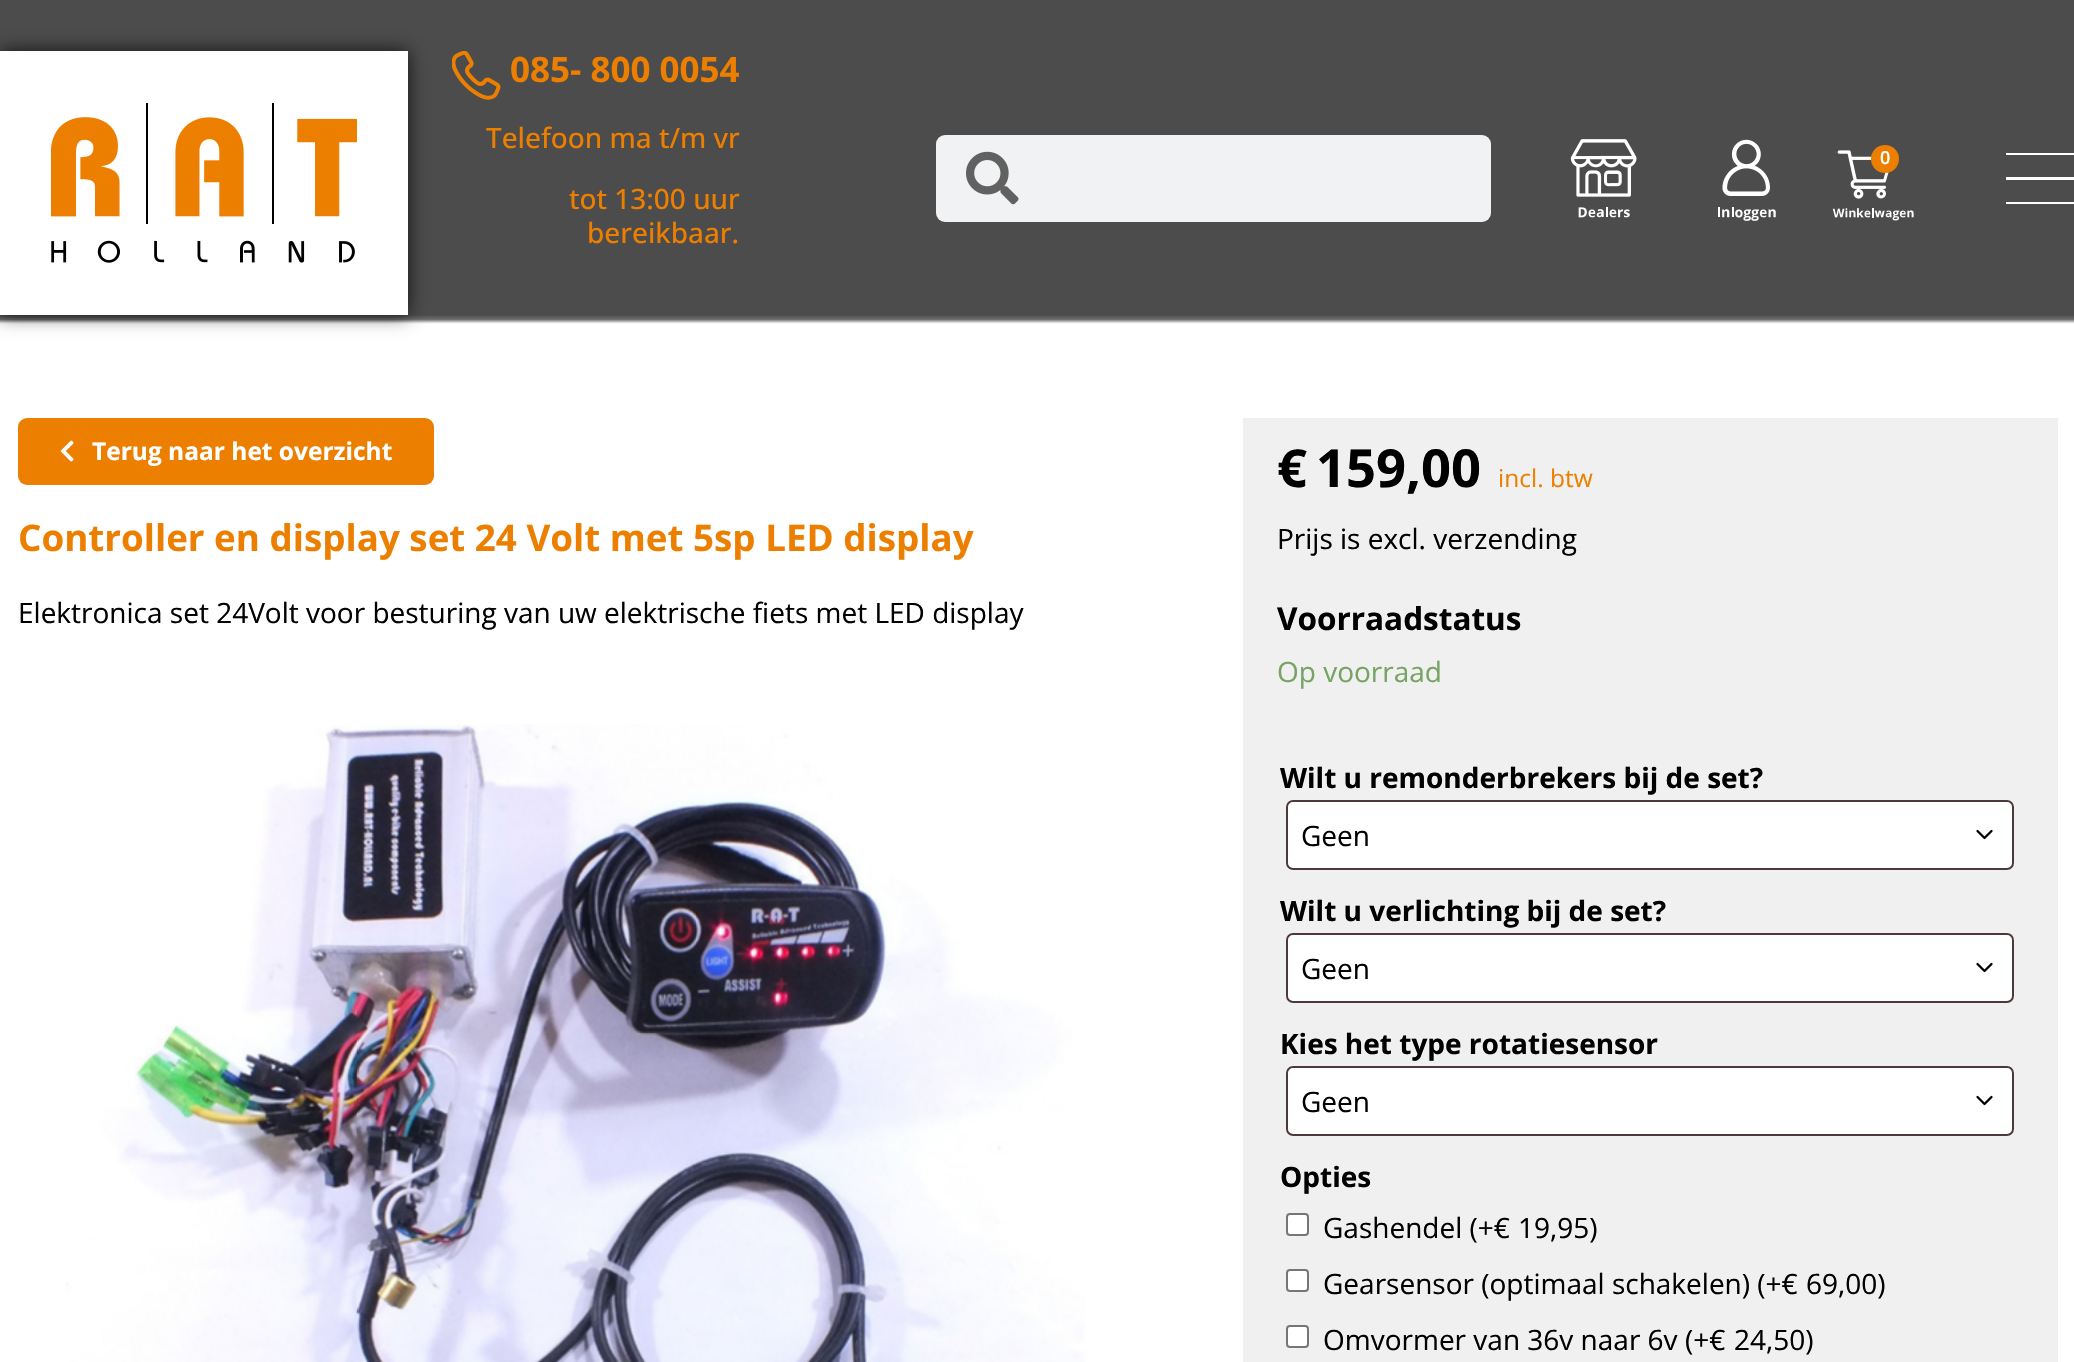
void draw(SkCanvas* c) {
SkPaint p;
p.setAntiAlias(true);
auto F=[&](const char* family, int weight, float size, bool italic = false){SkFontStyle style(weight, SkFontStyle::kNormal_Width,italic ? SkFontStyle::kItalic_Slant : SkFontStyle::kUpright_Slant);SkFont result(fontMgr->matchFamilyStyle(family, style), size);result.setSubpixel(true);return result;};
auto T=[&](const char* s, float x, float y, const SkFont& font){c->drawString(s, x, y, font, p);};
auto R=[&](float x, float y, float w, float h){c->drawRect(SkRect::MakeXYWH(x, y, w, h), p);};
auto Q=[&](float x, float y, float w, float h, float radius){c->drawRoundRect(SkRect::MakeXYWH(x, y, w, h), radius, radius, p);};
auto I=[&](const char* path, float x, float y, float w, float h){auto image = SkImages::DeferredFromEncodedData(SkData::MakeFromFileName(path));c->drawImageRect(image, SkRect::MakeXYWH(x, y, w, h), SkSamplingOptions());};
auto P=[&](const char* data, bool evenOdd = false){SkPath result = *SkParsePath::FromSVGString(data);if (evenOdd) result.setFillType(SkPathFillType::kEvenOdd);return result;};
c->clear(0xffffffff);
I("1.png",0,0,2074,324);
p.setColor(0xc4000000);
p.setMaskFilter(SkMaskFilter::MakeBlur(kNormal_SkBlurStyle, 9));
c->drawRect(SkRect::MakeXYWH(0,51,408,264),p);
p.setMaskFilter(nullptr);
p.setColor(0xffffffff);
R(0,51,408,264);
I("2.png",51,103,306,160);
I("3.png",452,51,49,49);
auto f1 = F("Open Sans",700,35);
p.setColor(0xffed7f00);
T("085- 800 0054",510,82,f1);
auto f2 = F("Open Sans",500,28);
T("Telefoon ma t/m vr",486,148,f2);
T("tot 13:00 uur",569,209,f2);
T("bereikbaar.",587,243,f2);
p.setColor(0xfff1f2f3);
Q(936,135,555,87,9);
I("4.png",966,151,53,54);
I("5.png",1570,139,67,79);
I("6.png",1718,139,58,82);
I("7.png",1832,150,82,71);
p.setColor(0xffed7f00);
c->drawCircle(1885,159,14,p);
auto f3 = F("Open Sans",600,18);
p.setColor(0xffffffff);
T("0",1880,164,f3);
c->drawPath(P("M2006 153h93v2h-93zm0 24h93v3h-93zm0 25h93v2h-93z"),p);
p.setColor(0xffed7f00);
Q(18,418,416,67,9);
I("8.png",60,440,14,22);
auto f4 = F("Open Sans",700,24.5);
p.setColor(0xffffffff);
T("Terug naar het overzicht",92,460,f4);
auto f5 = F("Open Sans",700,36.75);
p.setColor(0xffed7f00);
T("Controller en display set 24 Volt met 5sp LED display",18,551,f5);
auto f6 = F("Open Sans",400,28);
p.setColor(0xff000000);
T("Elektronica set 24Volt voor besturing van uw elektrische fiets met LED display",18,623,f6);
I("9.png",65,724,1020,638);
p.setColor(0xfff0f0f0);
R(1243,418,815,944);
auto f7 = F("Open Sans",700,52.5);
p.setColor(0xff000000);
T("€",1277,487,f7);
T("159,00",1316,487,f7);
auto f8 = F("Open Sans",400,24.5);
p.setColor(0xffed7f00);
T("incl. btw",1498,487,f8);
p.setColor(0xff000000);
T("Prijs is excl. verzending",1277,549,f6);
auto f9 = F("Open Sans",700,31.5);
T("Voorraadstatus",1277,630,f9);
p.setColor(0xff77a464);
T("Op voorraad",1277,682,f6);
auto f10 = F("Open Sans",700,28);
p.setColor(0xff000000);
T("Wilt u remonderbrekers bij de set?",1280,788,f10);
p.setColor(0xffffffff);
Q(1286,800,728,70,7);
p.setStroke(true);
p.setStrokeWidth(2.3);
p.setStrokeCap(SkPaint::kRound_Cap);
p.setStrokeJoin(SkPaint::kRound_Join);
p.setColor(0xff000000);
c->drawPath(P("M1977.5 831l7 7l7-7"),p);
p.setStrokeWidth(2);
p.setStrokeCap(SkPaint::kButt_Cap);
p.setStrokeJoin(SkPaint::kMiter_Join);
p.setColor(0xcc200707);
c->drawRoundRect(SkRect::MakeXYWH(1287,801,726,68),6,6,p);
p.setStroke(false);
p.setColor(0xff000000);
T("Geen",1301,846,f6);
T("Wilt u verlichting bij de set?",1280,921,f10);
p.setColor(0xffffffff);
Q(1286,933,728,70,7);
p.setStroke(true);
p.setStrokeWidth(2.3);
p.setStrokeCap(SkPaint::kRound_Cap);
p.setStrokeJoin(SkPaint::kRound_Join);
p.setColor(0xff000000);
c->drawPath(P("M1977.5 964l7 7l7-7"),p);
p.setStrokeWidth(2);
p.setStrokeCap(SkPaint::kButt_Cap);
p.setStrokeJoin(SkPaint::kMiter_Join);
p.setColor(0xcc200707);
c->drawRoundRect(SkRect::MakeXYWH(1287,934,726,68),6,6,p);
p.setStroke(false);
p.setColor(0xff000000);
T("Geen",1301,979,f6);
T("Kies het type rotatiesensor",1280,1054,f10);
p.setColor(0xffffffff);
Q(1286,1066,728,70,7);
p.setStroke(true);
p.setStrokeWidth(2.3);
p.setStrokeCap(SkPaint::kRound_Cap);
p.setStrokeJoin(SkPaint::kRound_Join);
p.setColor(0xff000000);
c->drawPath(P("M1977.5 1097l7 7l7-7"),p);
p.setStrokeWidth(2);
p.setStrokeCap(SkPaint::kButt_Cap);
p.setStrokeJoin(SkPaint::kMiter_Join);
p.setColor(0xcc200707);
c->drawRoundRect(SkRect::MakeXYWH(1287,1067,726,68),6,6,p);
p.setStroke(false);
p.setColor(0xff000000);
T("Geen",1301,1112,f6);
T("Opties",1280,1187,f10);
p.setColor(0xffffffff);
c->drawRoundRect(SkRect::MakeXYWH(1287,1214,21,21),3,3,p);
p.setStroke(true);
p.setColor(0xff767676);
c->drawRoundRect(SkRect::MakeXYWH(1287,1214,21,21),3,3,p);
p.setStroke(false);
p.setColor(0xff000000);
T("Gashendel (+€",1323,1238,f6);
T("19,95)",1518,1238,f6);
p.setColor(0xffffffff);
c->drawRoundRect(SkRect::MakeXYWH(1287,1270,21,21),3,3,p);
p.setStroke(true);
p.setColor(0xff767676);
c->drawRoundRect(SkRect::MakeXYWH(1287,1270,21,21),3,3,p);
p.setStroke(false);
p.setColor(0xff000000);
T("Gearsensor (optimaal schakelen) (+€",1323,1294,f6);
T("69,00)",1806,1294,f6);
p.setColor(0xffffffff);
c->drawRoundRect(SkRect::MakeXYWH(1287,1326,21,21),3,3,p);
p.setStroke(true);
p.setColor(0xff767676);
c->drawRoundRect(SkRect::MakeXYWH(1287,1326,21,21),3,3,p);
p.setStroke(false);
p.setColor(0xff000000);
T("Omvormer van 36v naar 6v (+€",1323,1350,f6);
T("24,50)",1734,1350,f6);
}
